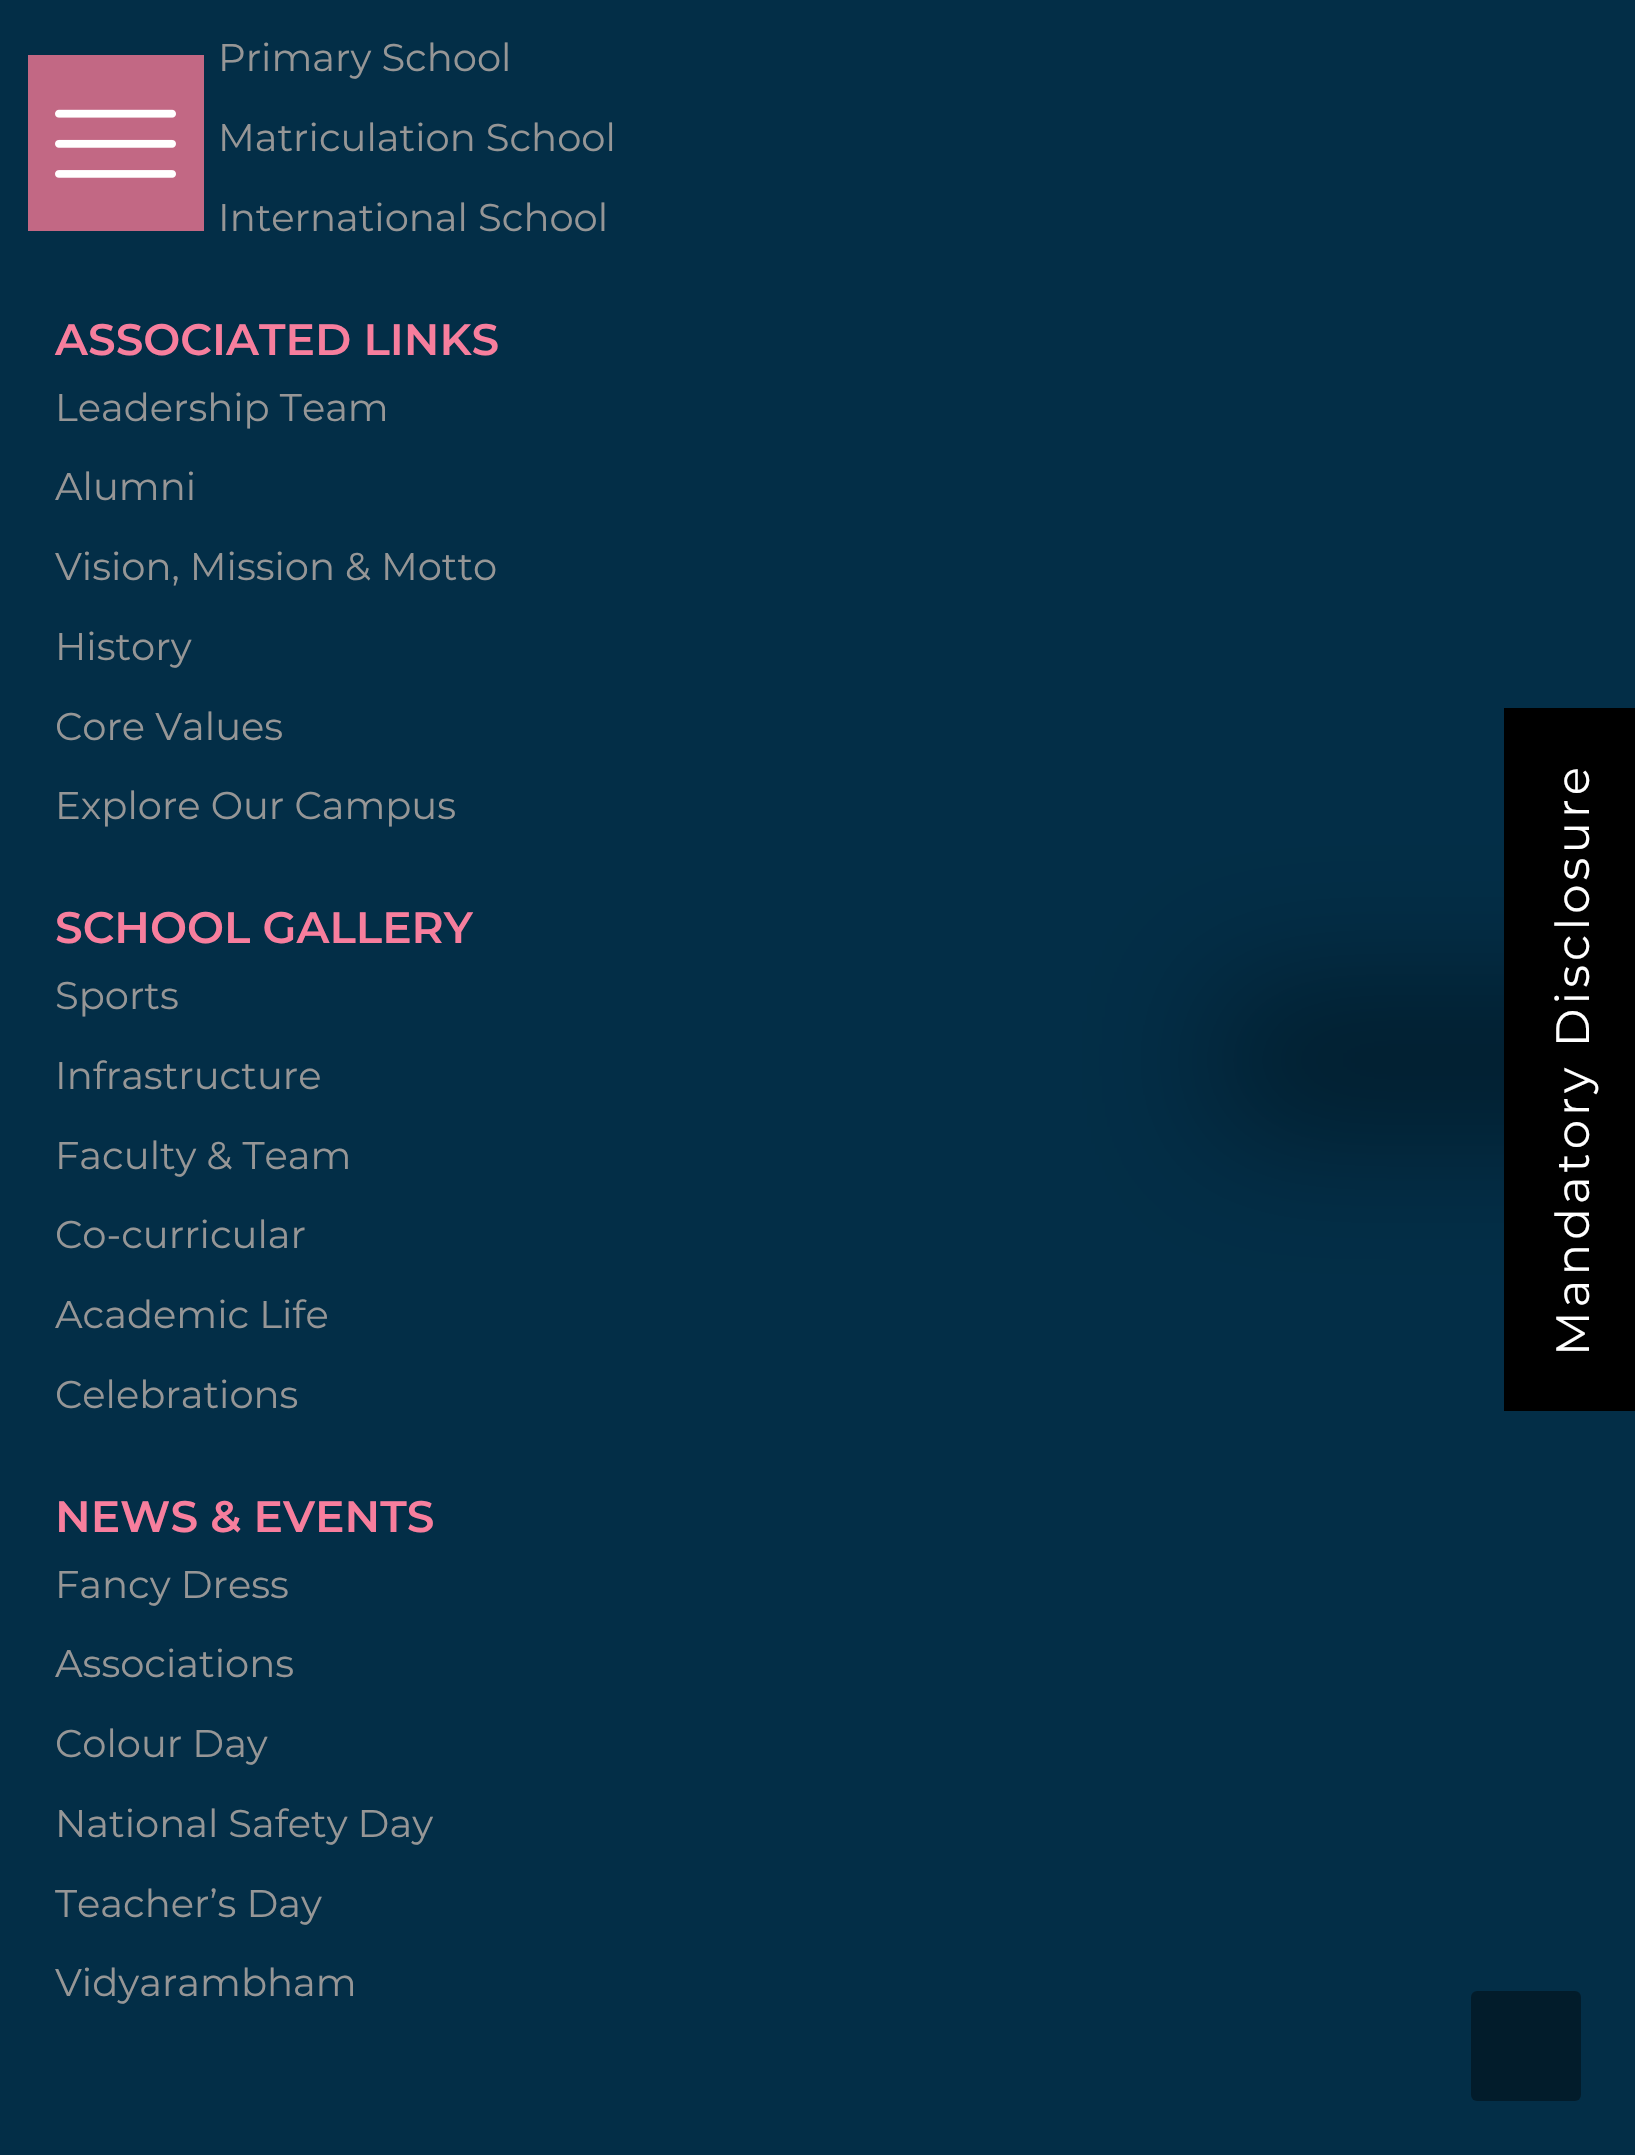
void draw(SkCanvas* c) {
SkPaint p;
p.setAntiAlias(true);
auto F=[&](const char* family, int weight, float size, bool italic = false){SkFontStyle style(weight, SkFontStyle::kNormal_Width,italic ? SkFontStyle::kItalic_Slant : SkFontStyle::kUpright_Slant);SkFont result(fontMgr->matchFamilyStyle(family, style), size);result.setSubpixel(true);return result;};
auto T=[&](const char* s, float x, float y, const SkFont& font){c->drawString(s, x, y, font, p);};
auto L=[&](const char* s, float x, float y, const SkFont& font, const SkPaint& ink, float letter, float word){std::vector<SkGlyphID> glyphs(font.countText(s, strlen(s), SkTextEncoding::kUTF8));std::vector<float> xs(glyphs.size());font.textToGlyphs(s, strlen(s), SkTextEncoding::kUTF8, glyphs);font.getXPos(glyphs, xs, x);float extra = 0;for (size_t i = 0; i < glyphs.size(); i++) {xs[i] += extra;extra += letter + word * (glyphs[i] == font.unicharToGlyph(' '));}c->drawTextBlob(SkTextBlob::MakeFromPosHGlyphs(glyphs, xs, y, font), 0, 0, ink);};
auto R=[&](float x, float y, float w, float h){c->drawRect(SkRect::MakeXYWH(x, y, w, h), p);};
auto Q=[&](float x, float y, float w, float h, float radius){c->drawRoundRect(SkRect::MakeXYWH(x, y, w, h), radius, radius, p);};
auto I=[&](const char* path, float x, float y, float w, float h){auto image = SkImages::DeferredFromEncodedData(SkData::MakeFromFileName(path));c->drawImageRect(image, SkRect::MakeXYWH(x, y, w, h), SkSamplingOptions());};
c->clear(0xff032e47);
auto f1 = F("Montserrat",400,38.5);
p.setColor(0xff969696);
T("Primary School",218,71,f1);
T("Matriculation School",218,151,f1);
T("International School",218,231,f1);
auto f2 = F("Montserrat",600,44);
p.setColor(0xfff77e9d);
T("ASSOCIATED LINKS",55,355,f2);
p.setColor(0xff969696);
T("Leadership Team",55,421,f1);
T("Alumni",55,500,f1);
T("Vision, Mission & Motto",55,580,f1);
T("History",55,660,f1);
T("Core Values",55,740,f1);
T("Explore Our Campus",55,819,f1);
p.setColor(0xfff77e9d);
T("SCHOOL GALLERY",55,943,f2);
p.setColor(0xff969696);
T("Sports",55,1009,f1);
T("Infrastructure",55,1089,f1);
T("Faculty & Team",55,1169,f1);
T("Co-curricular",55,1248,f1);
T("Academic Life",55,1328,f1);
T("Celebrations",55,1408,f1);
p.setColor(0xfff77e9d);
T("NEWS & EVENTS",55,1532,f2);
p.setColor(0xff969696);
T("Fancy Dress",55,1598,f1);
T("Associations",55,1677,f1);
T("Colour Day",55,1757,f1);
T("National Safety Day",55,1837,f1);
T("Teacher’s Day",55,1917,f1);
T("Vidyarambham",55,1996,f1);
p.setColor(0x73000000);
R(28,55,176,176);
p.setColor(0xc7f77e9d);
R(28,55,176,176);
I("1.png",55,109,121,69);
p.setColor(0x66000000);
p.setMaskFilter(SkMaskFilter::MakeBlur(kNormal_SkBlurStyle, 69));
c->drawRect(SkRect::MakeXYWH(1221,990,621,140),p);
p.setMaskFilter(nullptr);
p.setColor(0xff000000);
R(1504,708,131,703);
auto f3 = F("Montserrat",400,46.75);
p.setColor(0xffffffff);
c->save();
c->rotate(-90,1589,1356);
L("Mandatory Disclosure",1589,1356,f3,p,4.1,0);
c->restore();
p.setColor(0xff021c2b);
Q(1471,1991,110,110,6);
}
